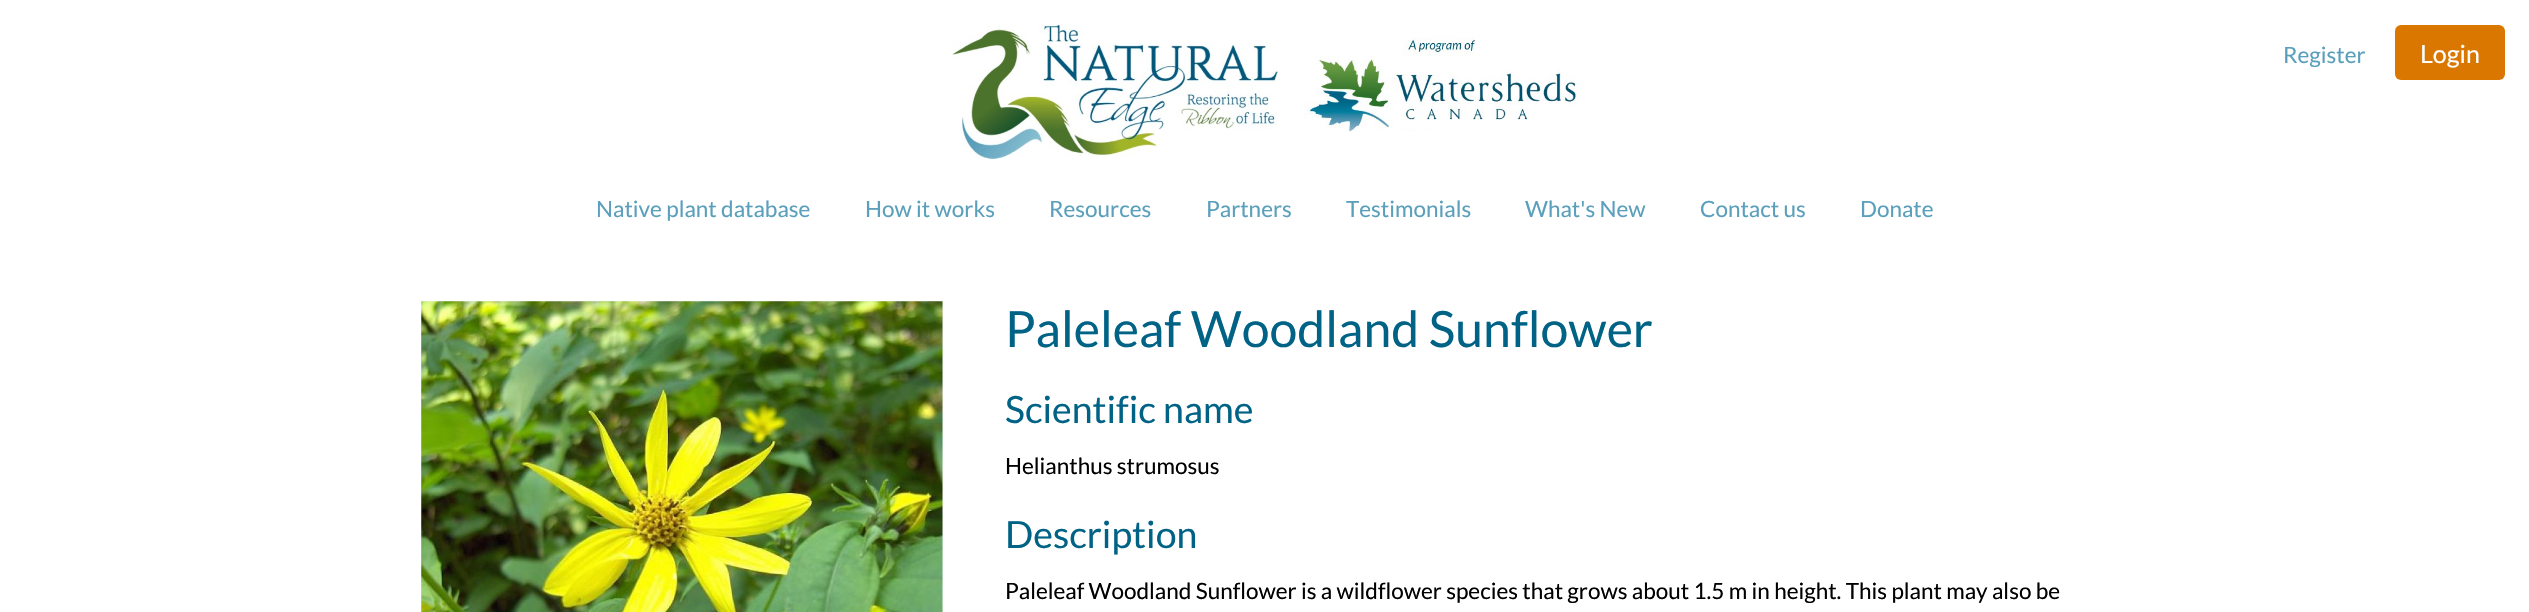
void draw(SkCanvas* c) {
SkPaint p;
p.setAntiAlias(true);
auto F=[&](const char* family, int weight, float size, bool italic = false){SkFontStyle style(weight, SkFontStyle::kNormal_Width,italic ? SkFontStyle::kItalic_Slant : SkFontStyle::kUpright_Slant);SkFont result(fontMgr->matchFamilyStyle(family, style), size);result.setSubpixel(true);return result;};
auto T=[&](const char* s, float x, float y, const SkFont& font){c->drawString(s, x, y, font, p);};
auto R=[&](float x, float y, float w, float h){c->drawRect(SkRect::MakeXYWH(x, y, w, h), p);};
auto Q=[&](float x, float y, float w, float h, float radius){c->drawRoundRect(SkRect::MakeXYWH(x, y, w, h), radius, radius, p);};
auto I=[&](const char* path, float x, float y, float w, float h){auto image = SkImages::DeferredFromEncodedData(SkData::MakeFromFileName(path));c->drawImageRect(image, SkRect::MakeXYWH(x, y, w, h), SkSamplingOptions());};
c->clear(0xffffffff);
I("1.png",952,25,326,134);
I("2.png",1304,37,273,95);
auto f1 = F("Lato",400,22.5);
p.setColor(0xff5a9fbb);
T("Register",2283,63,f1);
p.setColor(0xffda7700);
Q(2395,25,110,55,6);
auto f2 = F("Lato",400,25);
p.setColor(0xffffffff);
T("Login",2420,63,f2);
p.setColor(0xff5a9fbb);
T("Native plant database",596,217,f1);
T("How it works",865,217,f1);
T("Resources",1049,217,f1);
T("Partners",1206,217,f1);
T("Testimonials",1346,217,f1);
T("What's New",1525,217,f1);
T("Contact us",1700,217,f1);
T("Donate",1860,217,f1);
p.setColor(0xffebf3f6);
R(421,301,522,311);
I("3.png",421,301,522,311);
auto f3 = F("Lato",400,50);
p.setColor(0xff006386);
T("Paleleaf Woodland Sunflower",1005,347,f3);
auto f4 = F("Lato",400,37.5);
T("Scientific name",1005,423,f4);
p.setColor(0xff000000);
T("Helianthus strumosus",1005,474,f1);
p.setColor(0xff006386);
T("Description",1005,548,f4);
p.setColor(0xff000000);
T("Paleleaf Woodland Sunflower is a wildflower species that grows about 1.5 m in height. This plant may also be",1005,599,f1);
}
